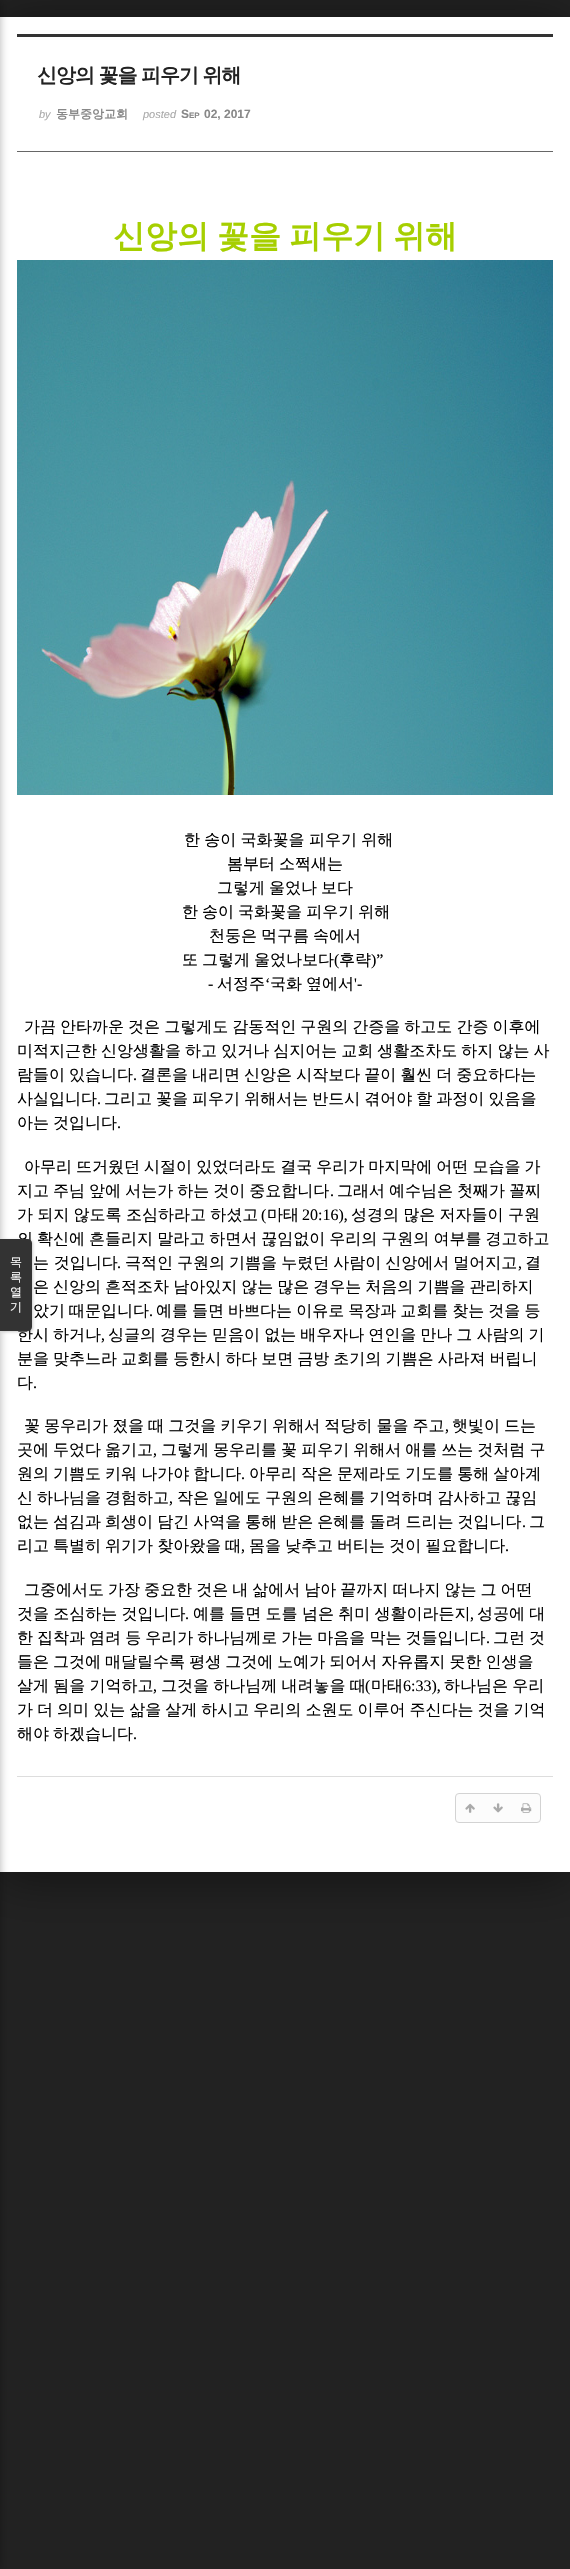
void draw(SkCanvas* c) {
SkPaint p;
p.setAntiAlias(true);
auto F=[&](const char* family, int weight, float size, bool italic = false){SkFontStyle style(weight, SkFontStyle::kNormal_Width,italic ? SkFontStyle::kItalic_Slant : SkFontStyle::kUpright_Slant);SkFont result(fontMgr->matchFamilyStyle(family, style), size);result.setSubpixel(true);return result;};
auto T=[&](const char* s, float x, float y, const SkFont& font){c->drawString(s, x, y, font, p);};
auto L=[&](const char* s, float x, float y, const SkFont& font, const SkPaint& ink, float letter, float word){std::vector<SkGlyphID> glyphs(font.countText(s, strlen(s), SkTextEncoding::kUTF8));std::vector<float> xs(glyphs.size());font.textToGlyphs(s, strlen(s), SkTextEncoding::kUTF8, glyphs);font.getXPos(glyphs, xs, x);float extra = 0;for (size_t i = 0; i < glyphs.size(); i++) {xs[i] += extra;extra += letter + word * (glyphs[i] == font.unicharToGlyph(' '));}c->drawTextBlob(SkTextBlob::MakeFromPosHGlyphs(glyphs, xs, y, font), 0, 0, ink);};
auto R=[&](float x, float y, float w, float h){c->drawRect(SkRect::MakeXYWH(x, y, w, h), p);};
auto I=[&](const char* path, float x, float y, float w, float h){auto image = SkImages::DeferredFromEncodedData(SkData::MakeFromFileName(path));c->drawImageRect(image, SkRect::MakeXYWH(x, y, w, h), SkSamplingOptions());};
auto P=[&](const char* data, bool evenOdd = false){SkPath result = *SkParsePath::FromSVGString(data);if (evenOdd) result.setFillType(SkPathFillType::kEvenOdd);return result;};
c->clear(0xff222222);
p.setColor(0x80000000);
p.setMaskFilter(SkMaskFilter::MakeBlur(kNormal_SkBlurStyle, 24));
c->drawRect(SkRect::MakeXYWH(0,21,570,1855),p);
p.setMaskFilter(nullptr);
p.setColor(0xffffffff);
R(0,17,570,1855);
p.setColor(0x4d000000);
p.setMaskFilter(SkMaskFilter::MakeBlur(kNormal_SkBlurStyle, 4));
c->drawRect(SkRect::MakeXYWH(-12,0,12,2569),p);
p.setMaskFilter(nullptr);
p.setColor(0x33000000);
p.setMaskFilter(SkMaskFilter::MakeBlur(kNormal_SkBlurStyle, 1.5));
c->drawRoundRect(SkRect::MakeXYWH(1,1240,32,92),4,4,p);
p.setMaskFilter(nullptr);
auto f1 = F("WenQuanYi Zen Hei",500,16);
p.setColor(0xff000000);
L("의 확신에 흔들리지 말라고 하면서 끊임없이 우리의 구원의 여부를 경고하고",17,1244,f1,p,0,-.75);
L("한시 하거나",17,1340,f1,p,0,-.75);
p.setColor(0xff333333);
c->drawPath(P("M0 1239h28c2 0 4 2 4 4v84c0 2-2 4-4 4h-28z"),p);
auto f2 = F("WenQuanYi Zen Hei",500,12);
p.setColor(0xffffffff);
T("목",10,1266,f2);
T("록",10,1281,f2);
T("열",10,1296,f2);
T("기",10,1311,f2);
p.setColor(0xff333333);
R(17,34,536,3);
p.setColor(0xff666666);
R(17,151,536,1);
auto f3 = F("WenQuanYi Zen Hei",700,20);
p.setColor(0xff222222);
L("신앙의 꽃을 피우기 위해",37,82,f3,p,-1,-.5);
auto f4 = F("Liberation Sans",400,11,true);
p.setColor(0xffaaaaaa);
T("by",39,118,f4);
auto f5 = F("WenQuanYi Zen Hei",700,12);
p.setColor(0xff888888);
T("동부중앙교회",56,118,f5);
p.setColor(0xffaaaaaa);
T("posted",143,118,f4);
auto f6 = F("Liberation Sans",700,12);
p.setColor(0xff888888);
T("S",181,118,f6);
auto f7 = F("Liberation Sans",700,8);
T("EP",189,118,f7);
T("02, 2017",204,118,f6);
auto f8 = F("WenQuanYi Zen Hei",700,32);
p.setColor(0xffa6cf00);
L("신앙의 꽃을 피우기 위해",113,247,f8,p,0,-1.5);
I("1.png",17,260,536,535);
p.setColor(0xff000000);
L("한 송이 국화꽃을 피우기 위해",184,845,f1,p,0,-.5);
L("봄부터 소쩍새는",227,869,f1,p,0,-.75);
L("그렇게 울었나 보다",217,893,f1,p,0,-.75);
L("한 송이 국화꽃을 피우기 위해",182,917,f1,p,0,-.75);
L("천둥은 먹구름 속에서",209,941,f1,p,0,-.75);
L("또 그렇게 울었나보다",182,965,f1,p,0,-.75);
auto f9 = F("Liberation Serif",400,16);
T("(",334,965,f9);
T("후략",339,965,f1);
T(")”",371,965,f9);
T("-",208,989,f9);
T("서정주",217,989,f1);
T("‘",265,989,f9);
L("국화 옆에서",270,989,f1,p,0,-.75);
T("'-",354,989,f9);
L("가끔 안타까운 것은 그렇게도 감동적인 구원의 간증을 하고도 간증 이후에",24,1032,f1,p,0,-.75);
L("미적지근한 신앙생활을 하고 있거나 심지어는 교회 생활조차도 하지 않는 사",17,1056,f1,p,0,-.75);
L("람들이 있습니다",17,1080,f1,p,0,-.75);
T(".",133,1080,f9);
L("결론을 내리면 신앙은 시작보다 끝이 훨씬 더 중요하다는",140,1080,f1,p,0,-.75);
T("사실입니다",17,1104,f1);
T(".",97,1104,f9);
L("그리고 꽃을 피우기 위해서는 반드시 겪어야 할 과정이 있음을",104,1104,f1,p,0,-.75);
L("아는 것입니다",17,1128,f1,p,0,-.75);
T(".",117,1128,f9);
L("아무리 뜨거웠던 시절이 있었더라도 결국 우리가 마지막에 어떤 모습을 가",24,1172,f1,p,0,-.75);
L("지고 주님 앞에 서는가 하는 것이 중요합니다",17,1196,f1,p,0,-.75);
T(".",330,1196,f9);
L("그래서 예수님은 첫째가 꼴찌",337,1196,f1,p,0,-.75);
L("가 되지 않도록 조심하라고 하셨고",17,1220,f1,p,0,-.5);
T("(",261,1220,f9);
T("마태",267,1220,f1);
T("20:16),",302,1220,f9);
L("성경의 많은 저자들이 구원",351,1220,f1,p,0,-.5);
T("는 것입니다",33,1268,f1);
T(".",117,1268,f9);
L("극적인 구원의 기쁨을 누렸던 사람이 신앙에서 멀어지고",125,1268,f1,p,0,-.75);
T(",",518,1268,f9);
T("결",525,1268,f1);
L("은 신앙의 흔적조차 남아있지 않는 많은 경우는 처음의 기쁨을 관리하지",33,1292,f1,p,0,-.75);
L("았기 때문입니다",33,1316,f1,p,0,-.75);
T(".",149,1316,f9);
L("예를 들면 바쁘다는 이유로 목장과 교회를 찾는 것을 등",156,1316,f1,p,0,-.75);
T(",",101,1340,f9);
L("싱글의 경우는 믿음이 없는 배우자나 연인을 만나 그 사람의 기",108,1340,f1,p,0,-.75);
L("분을 맞추느라 교회를 등한시 하다 보면 금방 초기의 기쁨은 사라져 버립니",17,1364,f1,p,0,-.75);
T("다",17,1388,f1);
T(".",33,1388,f9);
L("꽃 몽우리가 졌을 때 그것을 키우기 위해서 적당히 물을 주고",24,1431,f1,p,0,-.75);
T(",",445,1431,f9);
L("햇빛이 드는",452,1431,f1,p,0,-.75);
L("곳에 두었다 옮기고",17,1455,f1,p,0,-.75);
T(",",153,1455,f9);
L("그렇게 몽우리를 꽃 피우기 위해서 애를 쓰는 것처럼 구",161,1455,f1,p,0,-.75);
L("원의 기쁨도 키워 나가야 합니다",17,1479,f1,p,0,-.75);
T(".",241,1479,f9);
L("아무리 작은 문제라도 기도를 통해 살아계",249,1479,f1,p,0,-.75);
L("신 하나님을 경험하고",17,1503,f1,p,0,-.75);
T(",",169,1503,f9);
L("작은 일에도 구원의 은혜를 기억하며 감사하고 끊임",177,1503,f1,p,0,-.75);
L("없는 섬김과 희생이 담긴 사역을 통해 받은 은혜를 돌려 드리는 것입니다",17,1527,f1,p,0,-.75);
T(".",522,1527,f9);
T("그",529,1527,f1);
L("리고 특별히 위기가 찾아왔을 때",17,1551,f1,p,0,-.75);
T(",",241,1551,f9);
L("몸을 낮추고 버티는 것이 필요합니다",249,1551,f1,p,0,-.75);
T(".",505,1551,f9);
L("그중에서도 가장 중요한 것은 내 삶에서 남아 끝까지 떠나지 않는 그 어떤",24,1595,f1,p,0,-.75);
L("것을 조심하는 것입니다",17,1619,f1,p,0,-.5);
T(".",185,1619,f9);
L("예를 들면 도를 넘은 취미 생활이라든지",193,1619,f1,p,0,-.5);
T(",",470,1619,f9);
L("성공에 대",477,1619,f1,p,0,-.5);
L("한 집착과 염려 등 우리가 하나님께로 가는 마음을 막는 것들입니다",17,1643,f1,p,0,-.75);
T(".",486,1643,f9);
L("그런 것",493,1643,f1,p,0,-.75);
L("들은 그것에 매달릴수록 평생 그것에 노예가 되어서 자유롭지 못한 인생을",17,1667,f1,p,0,-.75);
L("살게 됨을 기억하고",17,1691,f1,p,0,-.5);
T(",",153,1691,f9);
L("그것을 하나님께 내려놓을 때",161,1691,f1,p,0,-.5);
T("(",365,1691,f9);
T("마태",371,1691,f1);
T("6:33),",403,1691,f9);
L("하나님은 우리",444,1691,f1,p,0,-.5);
L("가 더 의미 있는 삶을 살게 하시고 우리의 소원도 이루어 주신다는 것을 기억",17,1715,f1,p,0,-.75);
L("해야 하겠습니다",17,1739,f1,p,0,-.75);
T(".",133,1739,f9);
p.setColor(0xffdddddd);
R(17,1776,536,1);
p.setColor(0xfffcfcfc);
c->drawRoundRect(SkRect::MakeXYWH(455.5,1793.5,85,29),3.5,3.5,p);
p.setStroke(true);
p.setStrokeWidth(1);
p.setColor(0xffd3d3d3);
c->drawRoundRect(SkRect::MakeXYWH(455.5,1793.5,85,29),3.5,3.5,p);
I("2.png",465,1803,10,10);
I("3.png",493,1803,10,10);
I("4.png",521,1803,11,10);
}
